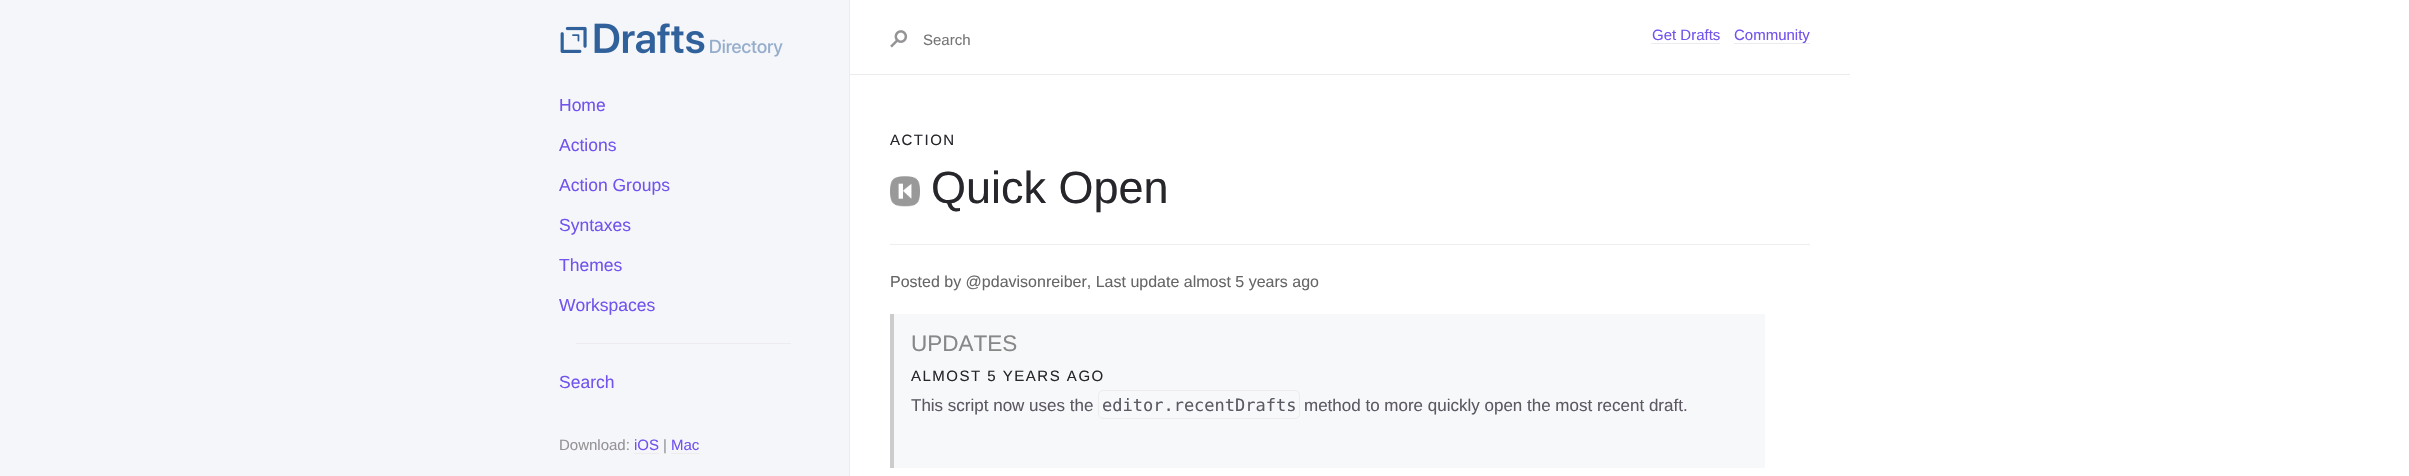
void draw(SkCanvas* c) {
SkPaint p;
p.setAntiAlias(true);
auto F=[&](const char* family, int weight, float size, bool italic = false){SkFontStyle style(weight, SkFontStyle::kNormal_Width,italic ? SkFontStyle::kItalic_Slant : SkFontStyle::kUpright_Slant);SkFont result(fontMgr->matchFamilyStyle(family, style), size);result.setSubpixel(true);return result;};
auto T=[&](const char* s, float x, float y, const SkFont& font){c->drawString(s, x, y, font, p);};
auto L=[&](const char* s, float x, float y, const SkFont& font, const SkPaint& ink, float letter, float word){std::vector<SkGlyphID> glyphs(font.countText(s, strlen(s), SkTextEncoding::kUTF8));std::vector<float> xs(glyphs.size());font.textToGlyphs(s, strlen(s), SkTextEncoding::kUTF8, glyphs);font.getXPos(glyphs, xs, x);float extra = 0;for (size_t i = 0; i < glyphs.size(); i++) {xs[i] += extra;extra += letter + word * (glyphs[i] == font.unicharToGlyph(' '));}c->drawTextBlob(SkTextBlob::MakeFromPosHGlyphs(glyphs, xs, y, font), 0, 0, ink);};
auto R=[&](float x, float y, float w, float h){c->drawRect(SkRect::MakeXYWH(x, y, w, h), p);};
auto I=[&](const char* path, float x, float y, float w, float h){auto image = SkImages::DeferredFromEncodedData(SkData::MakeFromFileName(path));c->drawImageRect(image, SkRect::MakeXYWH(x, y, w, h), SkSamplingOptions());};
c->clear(0xffffffff);
p.setColor(0xfff5f6fa);
R(0,0,849,476);
p.setColor(0xffeeebee);
R(849,0,1,476);
I("1.png",560,23,223,34);
auto f1 = F("Liberation Sans",400,17.5);
p.setColor(0xff7253ed);
T("Home",559,111,f1);
T("Actions",559,151,f1);
T("Action Groups",559,191,f1);
T("Syntaxes",559,231,f1);
T("Themes",559,271,f1);
T("Workspaces",559,311,f1);
p.setColor(0xffeeebee);
R(576,343,215,1);
p.setColor(0xff7253ed);
T("Search",559,388,f1);
auto f2 = F("Liberation Sans",400,15);
p.setColor(0xff959396);
T("Download:",559,450,f2);
p.setColor(0xff7253ed);
T("iOS",634,450,f2);
p.setColor(0xffeeebee);
R(634,453,25,1);
p.setColor(0xff959396);
T("|",663,450,f2);
p.setColor(0xff7253ed);
T("Mac",671,450,f2);
p.setColor(0xffeeebee);
R(671,453,29,1);
R(850,74,1000,1);
I("2.png",890,30,18,18);
p.setColor(0xff757575);
T("Search",923,45,f2);
p.setColor(0xff7253ed);
T("Get Drafts",1652,40,f2);
p.setColor(0xffeeebee);
R(1651,43,69,1);
R(1734,43,76,1);
p.setColor(0xff7253ed);
T("Community",1734,40,f2);
p.setColor(0xff27262b);
L("ACTION",890,145,f2,p,1.5,0);
p.setColor(0xffeeeeee);
R(890,244,920,1);
I("3.png",890,176,30,31);
auto f3 = F("Liberation Sans",400,45);
p.setColor(0xff27262b);
T("Quick Open",931,203,f3);
auto f4 = F("Liberation Sans",400,16);
p.setColor(0xff666666);
T("Posted by @pdavisonreiber, Last update almost 5 years ago",890,287,f4);
p.setColor(0xfff7f8fa);
R(894,314,871,154);
p.setColor(0xffcccccc);
R(890,314,4,154);
auto f5 = F("Liberation Sans",400,22.5);
p.setColor(0xff888888);
T("UPDATES",911,351,f5);
p.setColor(0xff27262b);
L("ALMOST 5 YEARS AGO",911,381,f2,p,1.5,0);
auto f6 = F("Liberation Sans",400,17);
p.setColor(0xff5c5962);
T("This script now uses the",911,411,f6);
p.setStroke(true);
p.setStrokeWidth(1);
p.setColor(0xffeeebee);
c->drawRoundRect(SkRect::MakeXYWH(1098.5,390.5,201,28),4.5,4.5,p);
auto f7 = F("DejaVu Sans Mono",400,17);
p.setStroke(false);
p.setColor(0xff5c5962);
T("editor.recentDrafts",1102,411,f7);
T("method to more quickly open the most recent draft.",1304,411,f6);
}
